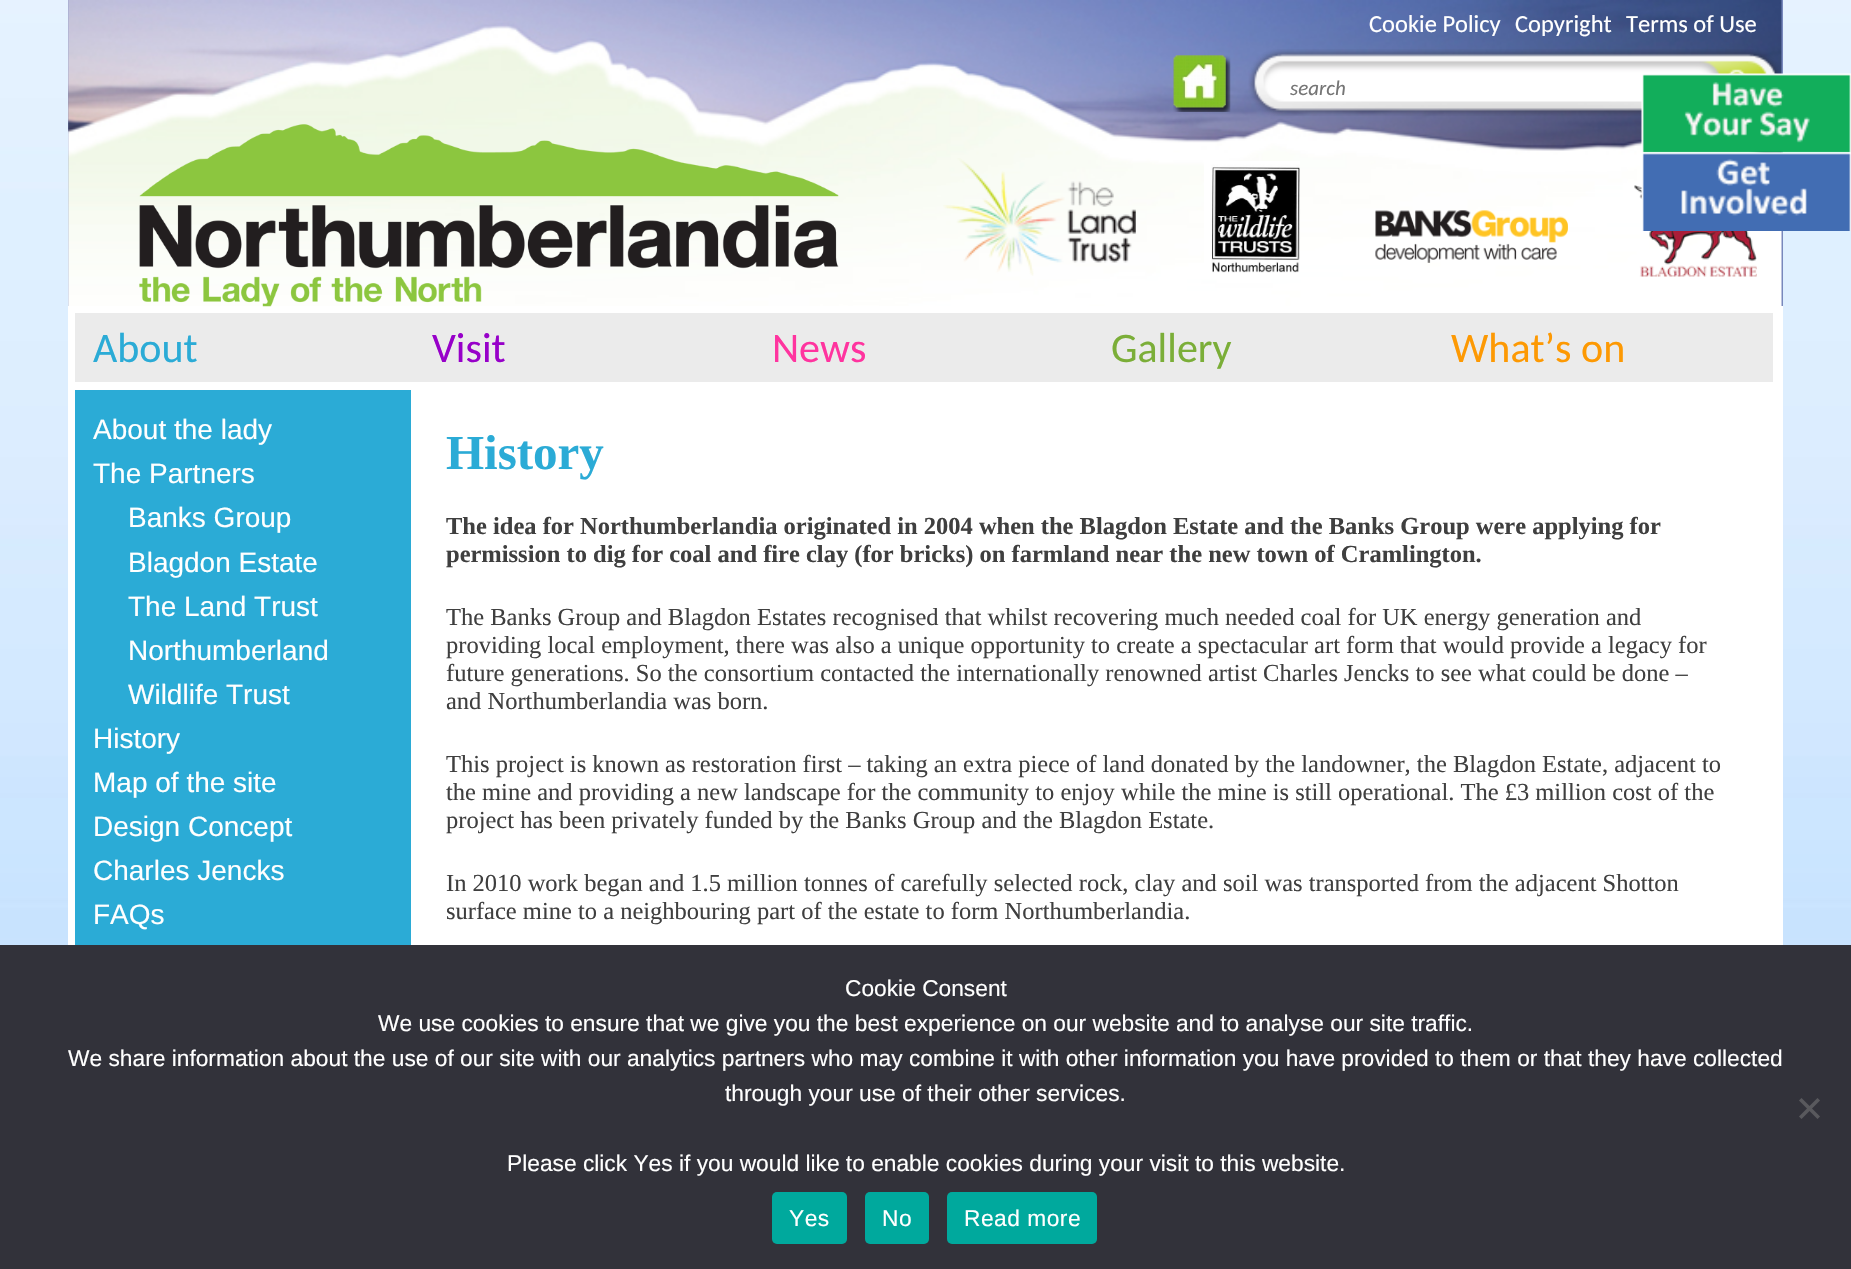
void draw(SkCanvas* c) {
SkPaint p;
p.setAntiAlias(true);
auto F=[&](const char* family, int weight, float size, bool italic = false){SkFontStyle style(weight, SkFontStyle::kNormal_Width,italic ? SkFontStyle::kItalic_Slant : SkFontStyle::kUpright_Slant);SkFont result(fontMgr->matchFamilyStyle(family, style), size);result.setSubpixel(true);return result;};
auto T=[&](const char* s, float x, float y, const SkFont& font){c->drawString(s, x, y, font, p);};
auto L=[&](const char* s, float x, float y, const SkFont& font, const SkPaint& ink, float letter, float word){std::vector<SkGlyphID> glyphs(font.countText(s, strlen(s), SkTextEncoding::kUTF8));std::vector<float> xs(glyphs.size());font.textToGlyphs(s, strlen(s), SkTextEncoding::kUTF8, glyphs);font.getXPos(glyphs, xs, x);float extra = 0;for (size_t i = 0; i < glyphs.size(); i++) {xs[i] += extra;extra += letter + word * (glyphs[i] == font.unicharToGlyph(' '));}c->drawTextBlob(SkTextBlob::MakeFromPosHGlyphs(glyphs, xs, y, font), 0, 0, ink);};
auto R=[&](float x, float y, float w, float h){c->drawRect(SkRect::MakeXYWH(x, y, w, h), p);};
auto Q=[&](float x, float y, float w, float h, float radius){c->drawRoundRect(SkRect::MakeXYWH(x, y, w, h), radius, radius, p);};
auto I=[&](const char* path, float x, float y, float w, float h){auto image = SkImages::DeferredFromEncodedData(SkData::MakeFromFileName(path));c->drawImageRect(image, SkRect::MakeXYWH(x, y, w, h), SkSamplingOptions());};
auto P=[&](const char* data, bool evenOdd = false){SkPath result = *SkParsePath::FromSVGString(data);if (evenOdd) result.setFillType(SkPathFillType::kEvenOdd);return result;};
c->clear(0xffffffff);
I("1.png",0,0,1851,945);
p.setColor(0xffffffff);
R(68,306,1715,639);
p.setColor(0xff7888bc);
R(68,0,1715,306);
I("2.png",68,0,1714,306);
auto f1 = F("Carlito",400,24.5);
p.setColor(0xffffffff);
T("Cookie Policy",1369,32,f1);
T("Copyright",1515,32,f1);
T("Terms of Use",1626,32,f1);
I("3.png",1173,55,58,57);
I("4.png",1248,49,534,67);
auto f2 = F("Carlito",400,21,true);
p.setColor(0xff757575);
T("search",1290,95,f2);
I("5.png",139,124,700,183);
I("6.png",943,158,193,118);
I("7.png",1204,161,96,112);
I("8.png",1375,210,193,53);
I("9.png",1634,185,123,92);
p.setColor(0xffebebeb);
R(75,313,1698,69);
auto f3 = F("Carlito",400,42);
p.setColor(0xff2babd6);
T("About",93,362,f3);
p.setColor(0xff9700c9);
T("Visit",432,362,f3);
p.setColor(0xffff349f);
T("News",772,362,f3);
p.setColor(0xff7bae38);
T("Gallery",1111,362,f3);
p.setColor(0xfffd9903);
T("What’s on",1451,362,f3);
p.setColor(0xff2babd6);
R(75,390,336,555);
auto f4 = F("Liberation Sans",400,28);
p.setColor(0xffffffff);
T("About the lady",93,439,f4);
T("The Partners",93,483,f4);
T("Banks Group",128,527,f4);
T("Blagdon Estate",128,572,f4);
T("The Land Trust",128,616,f4);
T("Northumberland",128,660,f4);
T("Wildlife Trust",128,704,f4);
T("History",93,748,f4);
T("Map of the site",93,792,f4);
T("Design Concept",93,836,f4);
T("Charles Jencks",93,880,f4);
T("FAQs",93,924,f4);
auto f5 = F("Liberation Serif",700,49);
p.setColor(0xff2babd6);
T("History",446,469,f5);
auto f6 = F("Liberation Serif",700,24.5);
p.setColor(0xff3f3f3f);
T("The idea for Northumberlandia originated in 2004 when the Blagdon Estate and the Banks Group were applying for",446,534,f6);
T("permission to dig for coal and fire clay (for bricks) on farmland near the new town of Cramlington.",446,562,f6);
auto f7 = F("Liberation Serif",400,24.5);
T("The Banks Group and Blagdon Estates recognised that whilst recovering much needed coal for UK energy generation and",446,625,f7);
T("providing local employment, there was also a unique opportunity to create a spectacular art form that would provide a legacy for",446,653,f7);
T("future generations. So the consortium contacted the internationally renowned artist Charles Jencks to see what could be done –",446,681,f7);
T("and Northumberlandia was born.",446,709,f7);
T("This project is known as restoration first – taking an extra piece of land donated by the landowner, the Blagdon Estate, adjacent to",446,772,f7);
T("the mine and providing a new landscape for the community to enjoy while the mine is still operational. The £3 million cost of the",446,800,f7);
T("project has been privately funded by the Banks Group and the Blagdon Estate.",446,828,f7);
T("In 2010 work began and 1.5 million tonnes of carefully selected rock, clay and soil was transported from the adjacent Shotton",446,891,f7);
T("surface mine to a neighbouring part of the estate to form Northumberlandia.",446,919,f7);
I("10.png",1641,73,210,80);
I("11.png",1641,152,210,79);
p.setColor(0xff32323a);
R(0,945,1851,324);
auto f8 = F("Liberation Sans",400,22.75);
p.setColor(0xffffffff);
T("Cookie Consent",845,996,f8);
T("We use cookies to ensure that we give you the best experience on our website and to analyse our site traffic.",378,1031,f8);
T("We share information about the use of our site with our analytics partners who may combine it with other information you have provided to them or that they have collected",68,1066,f8);
T("through your use of their other services.",725,1101,f8);
T("Please click Yes if you would like to enable cookies during your visit to this website.",507,1171,f8);
p.setColor(0xff59595d);
c->drawPath(P("M1817.5 1098l2.5 2.5l-18.5 18.5l-2.5-2.5z"),p);
c->drawPath(P("M1799 1100.5l2.5-2.5l18.5 18.5l-2.5 2.5z"),p);
p.setColor(0xff00a99d);
Q(772,1192,75,52,5);
p.setColor(0xffffffff);
L("Yes",789,1226,f8,p,.5,0);
p.setColor(0xff00a99d);
Q(865,1192,64,52,5);
p.setColor(0xffffffff);
L("No",882,1226,f8,p,.5,0);
p.setColor(0xff00a99d);
Q(947,1192,150,52,5);
p.setColor(0xffffffff);
L("Read more",964,1226,f8,p,.5,0);
}
